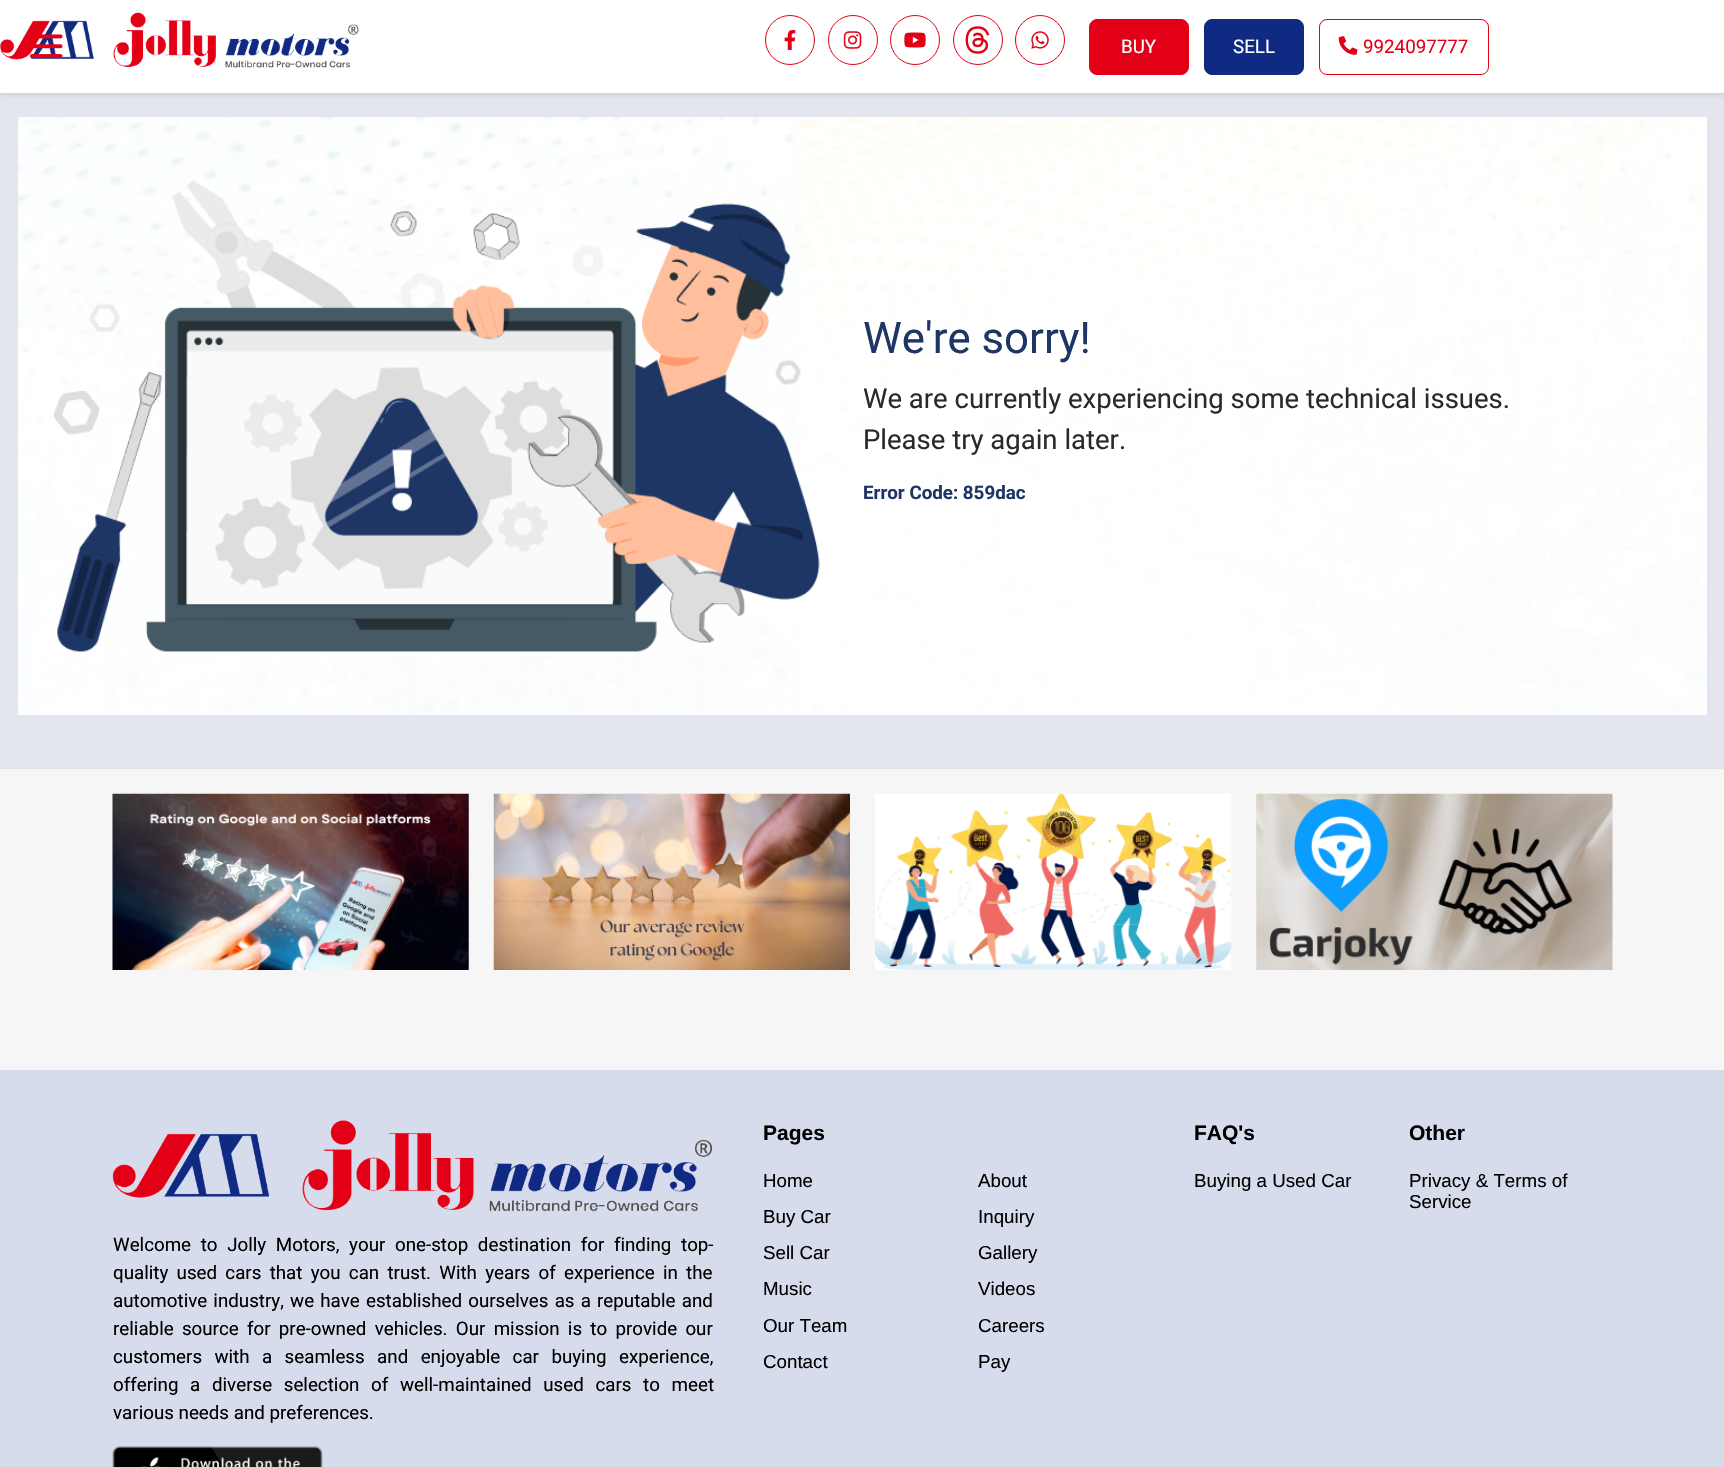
void draw(SkCanvas* c) {
SkPaint p;
p.setAntiAlias(true);
auto F=[&](const char* family, int weight, float size, bool italic = false){SkFontStyle style(weight, SkFontStyle::kNormal_Width,italic ? SkFontStyle::kItalic_Slant : SkFontStyle::kUpright_Slant);SkFont result(fontMgr->matchFamilyStyle(family, style), size);result.setSubpixel(true);return result;};
auto T=[&](const char* s, float x, float y, const SkFont& font){c->drawString(s, x, y, font, p);};
auto L=[&](const char* s, float x, float y, const SkFont& font, const SkPaint& ink, float letter, float word){std::vector<SkGlyphID> glyphs(font.countText(s, strlen(s), SkTextEncoding::kUTF8));std::vector<float> xs(glyphs.size());font.textToGlyphs(s, strlen(s), SkTextEncoding::kUTF8, glyphs);font.getXPos(glyphs, xs, x);float extra = 0;for (size_t i = 0; i < glyphs.size(); i++) {xs[i] += extra;extra += letter + word * (glyphs[i] == font.unicharToGlyph(' '));}c->drawTextBlob(SkTextBlob::MakeFromPosHGlyphs(glyphs, xs, y, font), 0, 0, ink);};
auto R=[&](float x, float y, float w, float h){c->drawRect(SkRect::MakeXYWH(x, y, w, h), p);};
auto I=[&](const char* path, float x, float y, float w, float h){auto image = SkImages::DeferredFromEncodedData(SkData::MakeFromFileName(path));c->drawImageRect(image, SkRect::MakeXYWH(x, y, w, h), SkSamplingOptions());};
c->clear(0xffe3e6ef);
p.setColor(0x1a000000);
p.setMaskFilter(SkMaskFilter::MakeBlur(kNormal_SkBlurStyle, 3));
c->drawRect(SkRect::MakeXYWH(0,3,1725,92),p);
p.setMaskFilter(nullptr);
p.setColor(0xffffffff);
R(0,0,1724,93);
I("1.png",0,12,359,56);
I("2.png",30,34,33,24);
p.setStroke(true);
p.setStrokeWidth(1);
p.setColor(0xffe30016);
c->drawCircle(790,40,24.5,p);
I("3.png",784,30,12,20);
c->drawCircle(853,40,24.5,p);
I("4.png",843,31,19,18);
c->drawCircle(915,40,24.5,p);
I("5.png",904,32,22,16);
c->drawCircle(978,40,24.5,p);
I("6.png",965,26,25,28);
c->drawCircle(1040,40,24.5,p);
I("7.png",1031,31,18,18);
p.setStroke(false);
c->drawRoundRect(SkRect::MakeXYWH(1089.5,19.5,99,55),7.5,7.5,p);
p.setStroke(true);
c->drawRoundRect(SkRect::MakeXYWH(1089.5,19.5,99,55),7.5,7.5,p);
auto f1 = F("Roboto",400,18.75);
p.setStroke(false);
p.setColor(0xffffffff);
T("BUY",1121,53,f1);
p.setColor(0xff102a83);
c->drawRoundRect(SkRect::MakeXYWH(1204.5,19.5,99,55),7.5,7.5,p);
p.setStroke(true);
c->drawRoundRect(SkRect::MakeXYWH(1204.5,19.5,99,55),7.5,7.5,p);
p.setStroke(false);
p.setColor(0xffffffff);
T("SELL",1233,53,f1);
p.setStroke(true);
p.setColor(0xffe30016);
c->drawRoundRect(SkRect::MakeXYWH(1319.5,19.5,169,55),7.5,7.5,p);
I("8.png",1338,36,20,19);
p.setStroke(false);
T("9924097777",1363,53,f1);
I("9.png",18,117,1689,598);
I("10.png",53,180,767,472);
auto f2 = F("Roboto",400,43.75);
p.setColor(0xff1d3666);
T("We're sorry!",863,353,f2);
auto f3 = F("Roboto",400,27.5);
p.setColor(0xff2b2a2a);
T("We are currently experiencing some technical issues.",863,408,f3);
T("Please try again later.",863,449,f3);
auto f4 = F("Roboto",700,18.75);
p.setColor(0xff1d3666);
T("Error Code: 859dac",863,499,f4);
p.setColor(0xffe4e4e4);
R(0,768,1724,1);
p.setColor(0xfff6f6f6);
R(0,769,1724,301);
I("11.png",112,793,357,177);
I("12.png",493,793,357,177);
I("13.png",875,793,357,177);
I("14.png",1256,793,357,177);
p.setColor(0xffd7dced);
R(0,1070,1724,397);
I("15.png",112,1120,601,92);
p.setColor(0xff000000);
L("Welcome to Jolly Motors, your one-stop destination for finding top-",113,1251,f1,p,0,5);
L("quality used cars that you can trust. With years of experience in the",113,1279,f1,p,0,3.6);
L("automotive industry, we have established ourselves as a reputable and",113,1307,f1,p,0,1.5);
L("reliable source for pre-owned vehicles. Our mission is to provide our",113,1335,f1,p,0,3.6);
L("customers with a seamless and enjoyable car buying experience,",113,1363,f1,p,0,7.75);
L("offering a diverse selection of well-maintained used cars to meet",113,1391,f1,p,0,7);
T("various needs and preferences.",113,1419,f1);
I("16.png",112,1446,211,21);
auto f5 = F("Liberation Sans",700,21);
T("Pages",763,1140,f5);
auto f6 = F("Liberation Sans",400,18.75);
T("Home",763,1187,f6);
T("About",978,1187,f6);
T("Buy Car",763,1223,f6);
T("Inquiry",978,1223,f6);
T("Sell Car",763,1259,f6);
T("Gallery",978,1259,f6);
T("Music",763,1295,f6);
T("Videos",978,1295,f6);
T("Our Team",763,1332,f6);
T("Careers",978,1332,f6);
T("Contact",763,1368,f6);
T("Pay",978,1368,f6);
T("FAQ's",1194,1140,f5);
T("Buying a Used Car",1194,1187,f6);
T("Other",1409,1140,f5);
T("Privacy & Terms of",1409,1187,f6);
T("Service",1409,1208,f6);
}
